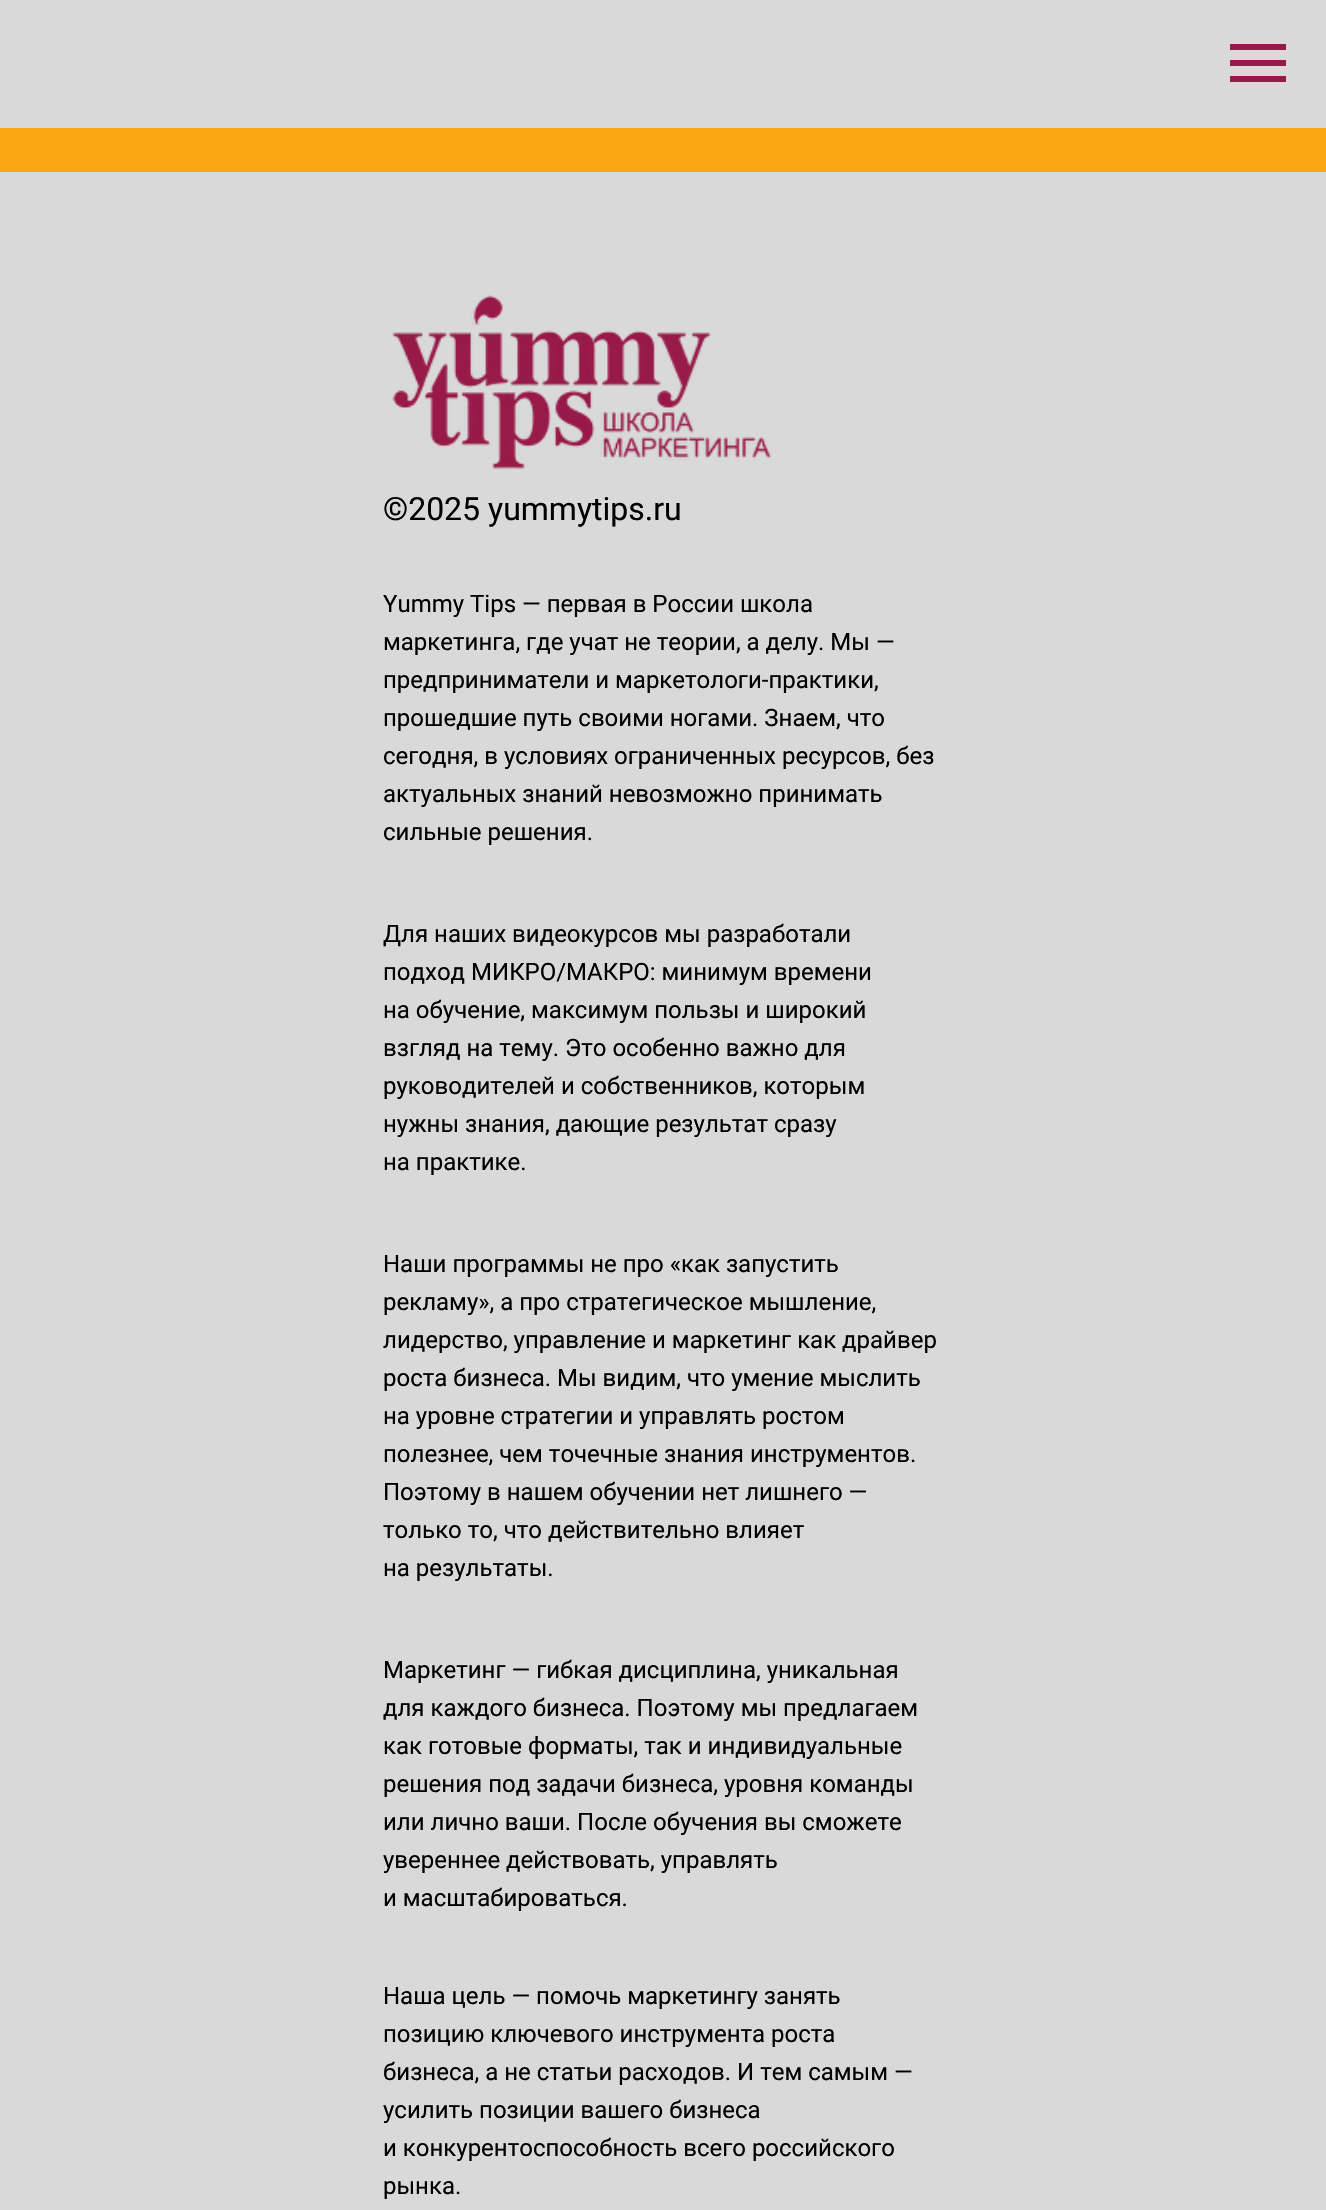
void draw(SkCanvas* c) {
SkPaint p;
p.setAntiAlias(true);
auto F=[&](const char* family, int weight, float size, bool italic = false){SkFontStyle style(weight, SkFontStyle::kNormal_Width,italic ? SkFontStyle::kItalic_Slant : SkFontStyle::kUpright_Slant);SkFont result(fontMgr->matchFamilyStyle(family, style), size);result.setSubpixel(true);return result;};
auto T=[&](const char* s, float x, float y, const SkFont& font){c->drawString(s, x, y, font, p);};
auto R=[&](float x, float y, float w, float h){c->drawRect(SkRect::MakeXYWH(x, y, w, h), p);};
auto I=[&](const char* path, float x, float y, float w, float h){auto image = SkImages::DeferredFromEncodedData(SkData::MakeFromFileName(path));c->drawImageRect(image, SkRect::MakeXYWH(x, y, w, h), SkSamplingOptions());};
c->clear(0xfffaa612);
p.setColor(0xffd9d9d9);
R(0,0,1326,128);
p.setColor(0xff971a49);
R(1230,44,56,6);
R(1230,60,56,6);
R(1230,76,56,6);
p.setColor(0xffd9d9d9);
R(0,172,1326,2038);
I("1.png",392,295,380,175);
auto f1 = F("Roboto",400,32);
p.setColor(0xff000000);
T("©2025 yummytips.ru",383,520,f1);
auto f2 = F("Roboto",400,24);
T("Yummy Tips — первая в России школа",383,612,f2);
T("маркетинга, где учат не теории, а делу. Мы —",383,650,f2);
T("предприниматели и маркетологи-практики,",383,688,f2);
T("прошедшие путь своими ногами. Знаем, что",383,726,f2);
T("сегодня, в условиях ограниченных ресурсов, без",383,764,f2);
T("актуальных знаний невозможно принимать",383,802,f2);
T("сильные решения.",383,840,f2);
T("Для наших видеокурсов мы разработали",383,942,f2);
T("подход МИКРО/МАКРО: минимум времени",383,980,f2);
T("на обучение, максимум пользы и широкий",383,1018,f2);
T("взгляд на тему. Это особенно важно для",383,1056,f2);
T("руководителей и собственников, которым",383,1094,f2);
T("нужны знания, дающие результат сразу",383,1132,f2);
T("на практике.",383,1170,f2);
T("Наши программы не про «как запустить",383,1272,f2);
T("рекламу», а про стратегическое мышление,",383,1310,f2);
T("лидерство, управление и маркетинг как драйвер",383,1348,f2);
T("роста бизнеса. Мы видим, что умение мыслить",383,1386,f2);
T("на уровне стратегии и управлять ростом",383,1424,f2);
T("полезнее, чем точечные знания инструментов.",383,1462,f2);
T("Поэтому в нашем обучении нет лишнего —",383,1500,f2);
T("только то, что действительно влияет",383,1538,f2);
T("на результаты.",383,1576,f2);
T("Маркетинг — гибкая дисциплина, уникальная",383,1678,f2);
T("для каждого бизнеса. Поэтому мы предлагаем",383,1716,f2);
T("как готовые форматы, так и индивидуальные",383,1754,f2);
T("решения под задачи бизнеса, уровня команды",383,1792,f2);
T("или лично ваши. После обучения вы сможете",383,1830,f2);
T("увереннее действовать, управлять",383,1868,f2);
T("и масштабироваться.",383,1906,f2);
T("Наша цель — помочь маркетингу занять",383,2004,f2);
T("позицию ключевого инструмента роста",383,2042,f2);
T("бизнеса, а не статьи расходов. И тем самым —",383,2080,f2);
T("усилить позиции вашего бизнеса",383,2118,f2);
T("и конкурентоспособность всего российского",383,2156,f2);
T("рынка.",383,2194,f2);
}
